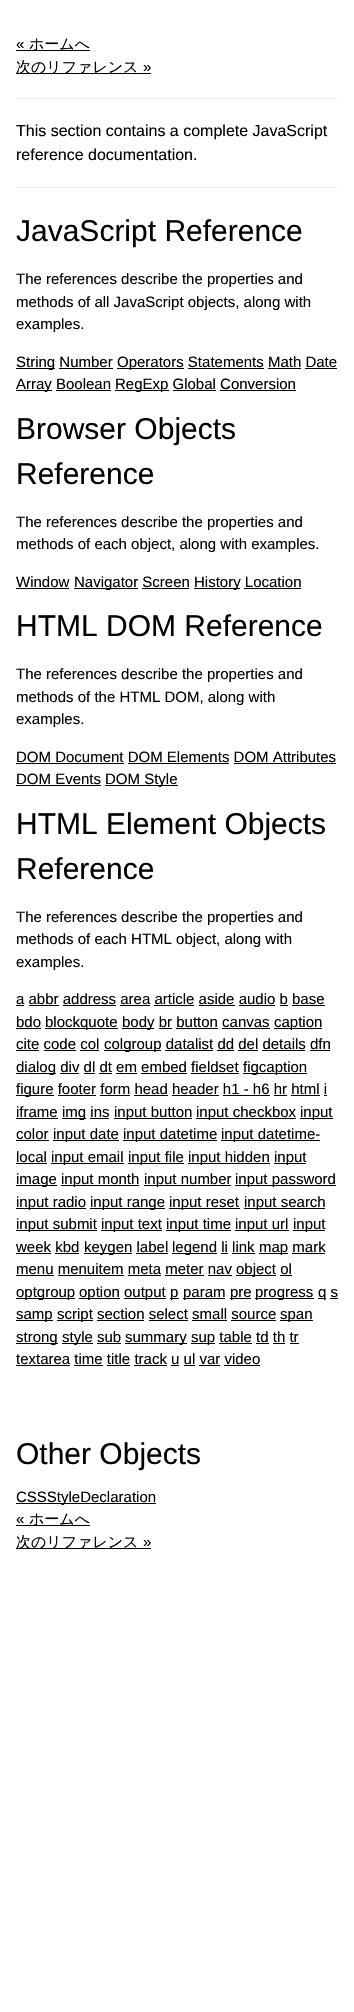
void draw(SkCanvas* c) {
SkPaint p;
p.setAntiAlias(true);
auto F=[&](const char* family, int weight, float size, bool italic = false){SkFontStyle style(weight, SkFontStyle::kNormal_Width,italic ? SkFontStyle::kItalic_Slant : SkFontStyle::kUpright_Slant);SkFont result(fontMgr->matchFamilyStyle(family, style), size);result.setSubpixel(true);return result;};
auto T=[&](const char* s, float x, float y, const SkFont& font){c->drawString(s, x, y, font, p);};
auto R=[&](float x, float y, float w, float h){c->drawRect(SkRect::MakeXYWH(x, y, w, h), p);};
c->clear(0xffffffff);
auto f1 = F("Liberation Sans",400,15);
p.setColor(0xff000000);
T("«",16,49,f1);
R(16,50,74,1);
auto f2 = F("WenQuanYi Zen Hei",500,15);
T("ホームへ",29,49,f2);
R(16,73,135,1);
T("次のリファレンス",16,72,f2);
T("»",143,72,f1);
p.setColor(0xffeeeeee);
R(16,98,322,1);
auto f3 = F("Liberation Sans",400,16);
p.setColor(0xff000000);
T("This section contains a complete JavaScript",16,136,f3);
T("reference documentation.",16,160,f3);
p.setColor(0xffeeeeee);
R(16,187,322,1);
auto f4 = F("Liberation Sans",400,30);
p.setColor(0xff000000);
T("JavaScript Reference",16,241,f4);
T("The references describe the properties and",16,284,f1);
T("methods of all JavaScript objects, along with",16,307,f1);
T("examples.",16,329,f1);
R(16,368,39,1);
T("String Number",16,367,f1);
R(117,368,67,1);
T("Operators Statements Math Date",117,367,f1);
R(59,368,54,1);
R(188,368,76,1);
R(268,368,33,1);
R(305,368,32,1);
R(16,390,36,1);
T("Array Boolean",16,389,f1);
R(115,390,54,1);
T("RegExp Global Conversion",115,389,f1);
R(56,390,55,1);
R(173,390,43,1);
R(220,390,76,1);
T("Browser Objects",16,439,f4);
T("Reference",16,484,f4);
T("The references describe the properties and",16,527,f1);
T("methods of each object, along with examples.",16,549,f1);
T("Window",16,587,f1);
R(16,588,53,1);
R(74,588,64,1);
T("Navigator Screen",74,587,f1);
R(194,588,46,1);
T("History Location",194,587,f1);
R(142,588,47,1);
R(244,588,57,1);
T("HTML DOM Reference",16,636,f4);
T("The references describe the properties and",16,679,f1);
T("methods of the HTML DOM, along with",16,702,f1);
T("examples.",16,724,f1);
T("DOM Document DOM Elements DOM Attributes",16,762,f1);
R(16,763,108,1);
R(128,763,101,1);
R(234,763,102,1);
T("DOM Events",16,784,f1);
R(16,785,85,1);
R(105,785,73,1);
T("DOM Style",105,784,f1);
T("HTML Element Objects",16,834,f4);
T("Reference",16,879,f4);
T("The references describe the properties and",16,922,f1);
T("methods of each HTML object, along with",16,944,f1);
T("examples.",16,967,f1);
T("a abbr address area article aside audio b base",16,1004,f1);
R(16,1005,8,1);
R(29,1005,30,1);
R(63,1005,53,1);
R(120,1005,30,1);
R(154,1005,40,1);
R(199,1005,36,1);
R(239,1005,36,1);
R(280,1005,8,1);
R(292,1005,33,1);
T("bdo",16,1027,f1);
R(16,1028,25,1);
R(45,1028,73,1);
T("blockquote",45,1027,f1);
R(122,1028,32,1);
T("body br button canvas",122,1027,f1);
R(274,1028,48,1);
T("caption",274,1027,f1);
R(159,1028,13,1);
R(176,1028,42,1);
R(222,1028,48,1);
T("cite code col",16,1049,f1);
R(16,1050,23,1);
R(104,1050,57,1);
T("colgroup datalist dd del details dfn",104,1049,f1);
R(44,1050,32,1);
R(80,1050,19,1);
R(165,1050,48,1);
R(217,1050,17,1);
R(238,1050,20,1);
R(262,1050,43,1);
R(310,1050,20,1);
R(16,1073,40,1);
T("dialog div dl dt em embed fieldset",16,1072,f1);
R(243,1073,64,1);
T("figcaption",243,1072,f1);
R(60,1073,19,1);
R(84,1073,11,1);
R(99,1073,13,1);
R(116,1073,21,1);
R(141,1073,46,1);
R(191,1073,48,1);
R(16,1095,38,1);
T("figure footer form head header h1 - h6 hr html i",16,1094,f1);
R(58,1095,38,1);
R(100,1095,30,1);
R(134,1095,34,1);
R(172,1095,47,1);
R(223,1095,47,1);
R(274,1095,13,1);
R(291,1095,29,1);
R(324,1095,3,1);
T("iframe",16,1117,f1);
R(16,1118,42,1);
R(62,1118,24,1);
T("img ins",62,1117,f1);
R(114,1118,78,1);
T("input button",114,1117,f1);
R(196,1118,100,1);
T("input checkbox",196,1117,f1);
R(300,1118,33,1);
T("input",300,1117,f1);
R(90,1118,19,1);
T("color",16,1139,f1);
R(16,1140,33,1);
R(53,1140,66,1);
T("input date",53,1139,f1);
R(123,1140,94,1);
T("input datetime",123,1139,f1);
R(221,1140,99,1);
T("input datetime-",221,1139,f1);
T("local",16,1162,f1);
R(16,1163,31,1);
R(51,1163,73,1);
T("input email",51,1162,f1);
R(128,1163,56,1);
T("input file",128,1162,f1);
R(188,1163,82,1);
T("input hidden",188,1162,f1);
R(274,1163,32,1);
T("input",274,1162,f1);
R(16,1185,41,1);
T("image",16,1184,f1);
R(61,1185,78,1);
T("input month",61,1184,f1);
R(144,1185,87,1);
T("input number",144,1184,f1);
R(235,1185,101,1);
T("input password",235,1184,f1);
R(16,1208,70,1);
T("input radio",16,1207,f1);
R(90,1208,75,1);
T("input range",90,1207,f1);
R(169,1208,71,1);
T("input reset",169,1207,f1);
R(244,1208,81,1);
T("input search",244,1207,f1);
R(16,1230,81,1);
T("input submit",16,1229,f1);
R(101,1230,61,1);
T("input text",101,1229,f1);
R(166,1230,65,1);
T("input time",166,1229,f1);
R(235,1230,54,1);
T("input url",235,1229,f1);
R(293,1230,32,1);
T("input",293,1229,f1);
T("week kbd",16,1252,f1);
R(16,1253,35,1);
R(84,1253,48,1);
T("keygen label",84,1252,f1);
R(172,1253,45,1);
T("legend li link",172,1252,f1);
R(259,1253,29,1);
T("map mark",259,1252,f1);
R(55,1253,24,1);
R(136,1253,32,1);
R(221,1253,7,1);
R(232,1253,23,1);
R(292,1253,33,1);
T("menu menuitem meta meter nav",16,1274,f1);
R(16,1275,38,1);
R(236,1275,40,1);
T("object ol",236,1274,f1);
R(58,1275,66,1);
R(128,1275,33,1);
R(165,1275,39,1);
R(208,1275,24,1);
R(280,1275,12,1);
R(16,1298,59,1);
T("optgroup",16,1297,f1);
R(79,1298,41,1);
T("option",79,1297,f1);
R(124,1298,42,1);
T("output",124,1297,f1);
R(170,1298,9,1);
T("p",170,1297,f1);
R(183,1298,42,1);
T("param",183,1297,f1);
R(230,1298,21,1);
T("pre",230,1297,f1);
R(255,1298,59,1);
T("progress",255,1297,f1);
R(318,1298,8,1);
T("q s",318,1297,f1);
R(330,1298,8,1);
R(16,1320,37,1);
T("samp",16,1319,f1);
R(57,1320,36,1);
T("script section select small source",57,1319,f1);
R(280,1320,33,1);
T("span",280,1319,f1);
R(97,1320,47,1);
R(149,1320,39,1);
R(192,1320,35,1);
R(231,1320,45,1);
R(16,1343,42,1);
T("strong",16,1342,f1);
R(62,1343,31,1);
T("style sub",62,1342,f1);
R(125,1343,62,1);
T("summary",125,1342,f1);
R(191,1343,24,1);
T("sup table td th tr",191,1342,f1);
R(97,1343,24,1);
R(219,1343,33,1);
R(256,1343,13,1);
R(273,1343,12,1);
R(290,1343,9,1);
T("textarea time title track u ul var video",16,1364,f1);
R(16,1365,54,1);
R(74,1365,29,1);
R(107,1365,23,1);
R(134,1365,33,1);
R(171,1365,8,1);
R(184,1365,11,1);
R(199,1365,21,1);
R(224,1365,36,1);
T("Other Objects",16,1464,f4);
R(16,1503,140,1);
T("CSSStyleDeclaration",16,1502,f1);
T("«",16,1524,f1);
R(16,1525,74,1);
T("ホームへ",29,1524,f2);
R(16,1548,135,1);
T("次のリファレンス",16,1547,f2);
T("»",143,1547,f1);
}
